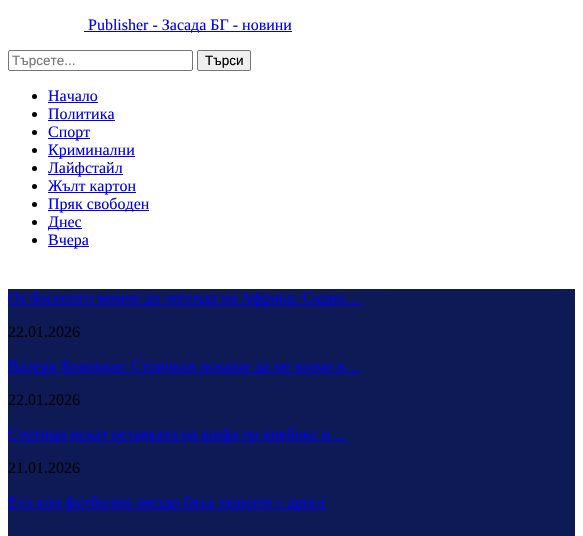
void draw(SkCanvas* c) {
SkPaint p;
p.setAntiAlias(true);
auto F=[&](const char* family, int weight, float size, bool italic = false){SkFontStyle style(weight, SkFontStyle::kNormal_Width,italic ? SkFontStyle::kItalic_Slant : SkFontStyle::kUpright_Slant);SkFont result(fontMgr->matchFamilyStyle(family, style), size);result.setSubpixel(true);return result;};
auto T=[&](const char* s, float x, float y, const SkFont& font){c->drawString(s, x, y, font, p);};
auto R=[&](float x, float y, float w, float h){c->drawRect(SkRect::MakeXYWH(x, y, w, h), p);};
c->clear(0xffffffff);
p.setColor(0xff0000ee);
R(84,31,208,1);
auto f1 = F("Liberation Serif",400,16);
T("Publisher - Засада БГ - новини",88,30,f1);
p.setStroke(true);
p.setStrokeWidth(1);
p.setColor(0xff767676);
c->drawRoundRect(SkRect::MakeXYWH(8.5,50.5,184,20),1.5,1.5,p);
auto f2 = F("Liberation Sans",400,13.5);
p.setStroke(false);
p.setColor(0xff757575);
T("Търсете...",12,65,f2);
p.setColor(0xffefefef);
c->drawRoundRect(SkRect::MakeXYWH(197.5,50.5,53,20),1.5,1.5,p);
p.setStroke(true);
p.setColor(0xff767676);
c->drawRoundRect(SkRect::MakeXYWH(197.5,50.5,53,20),1.5,1.5,p);
p.setStroke(false);
p.setColor(0xff000000);
T("Търси",205,65,f2);
c->drawCircle(34.5,96.5,2.5,p);
p.setColor(0xff0000ee);
T("Начало",48,101,f1);
R(48,102,50,1);
p.setColor(0xff000000);
c->drawCircle(34.5,114.5,2.5,p);
p.setColor(0xff0000ee);
T("Политика",48,119,f1);
R(48,120,67,1);
p.setColor(0xff000000);
c->drawCircle(34.5,132.5,2.5,p);
p.setColor(0xff0000ee);
R(48,138,42,1);
T("Спорт",48,137,f1);
p.setColor(0xff000000);
c->drawCircle(34.5,150.5,2.5,p);
p.setColor(0xff0000ee);
R(48,156,87,1);
T("Криминални",48,155,f1);
p.setColor(0xff000000);
c->drawCircle(34.5,168.5,2.5,p);
p.setColor(0xff0000ee);
R(48,174,75,1);
T("Лайфстайл",48,173,f1);
p.setColor(0xff000000);
c->drawCircle(34.5,186.5,2.5,p);
p.setColor(0xff0000ee);
R(48,192,88,1);
T("Жълт картон",48,191,f1);
p.setColor(0xff000000);
c->drawCircle(34.5,204.5,2.5,p);
p.setColor(0xff0000ee);
R(48,210,101,1);
T("Пряк свободен",48,209,f1);
p.setColor(0xff000000);
c->drawCircle(34.5,222.5,2.5,p);
p.setColor(0xff0000ee);
R(48,228,34,1);
T("Днес",48,227,f1);
p.setColor(0xff000000);
c->drawCircle(34.5,240.5,2.5,p);
p.setColor(0xff0000ee);
R(48,246,41,1);
T("Вчера",48,245,f1);
p.setColor(0xff0e1a55);
R(8,289,567,247);
p.setColor(0xff0000ee);
R(8,304,353,1);
T("От босоного момче до легенда на Африка: Садио…",8,303,f1);
p.setColor(0xff000000);
T("22.01.2026",8,337,f1);
p.setColor(0xff0000ee);
R(8,372,353,1);
T("Валери Божинов: Стоичков искаше да ме вземе в…",8,371,f1);
p.setColor(0xff000000);
T("22.01.2026",8,405,f1);
p.setColor(0xff0000ee);
R(8,440,338,1);
T("Стотици искат оставката на шефа по кикбокс и…",8,439,f1);
p.setColor(0xff000000);
T("21.01.2026",8,473,f1);
p.setColor(0xff0000ee);
R(8,508,317,1);
T("Ето кои футболни звезди бяха хванати с дрога",8,507,f1);
}
